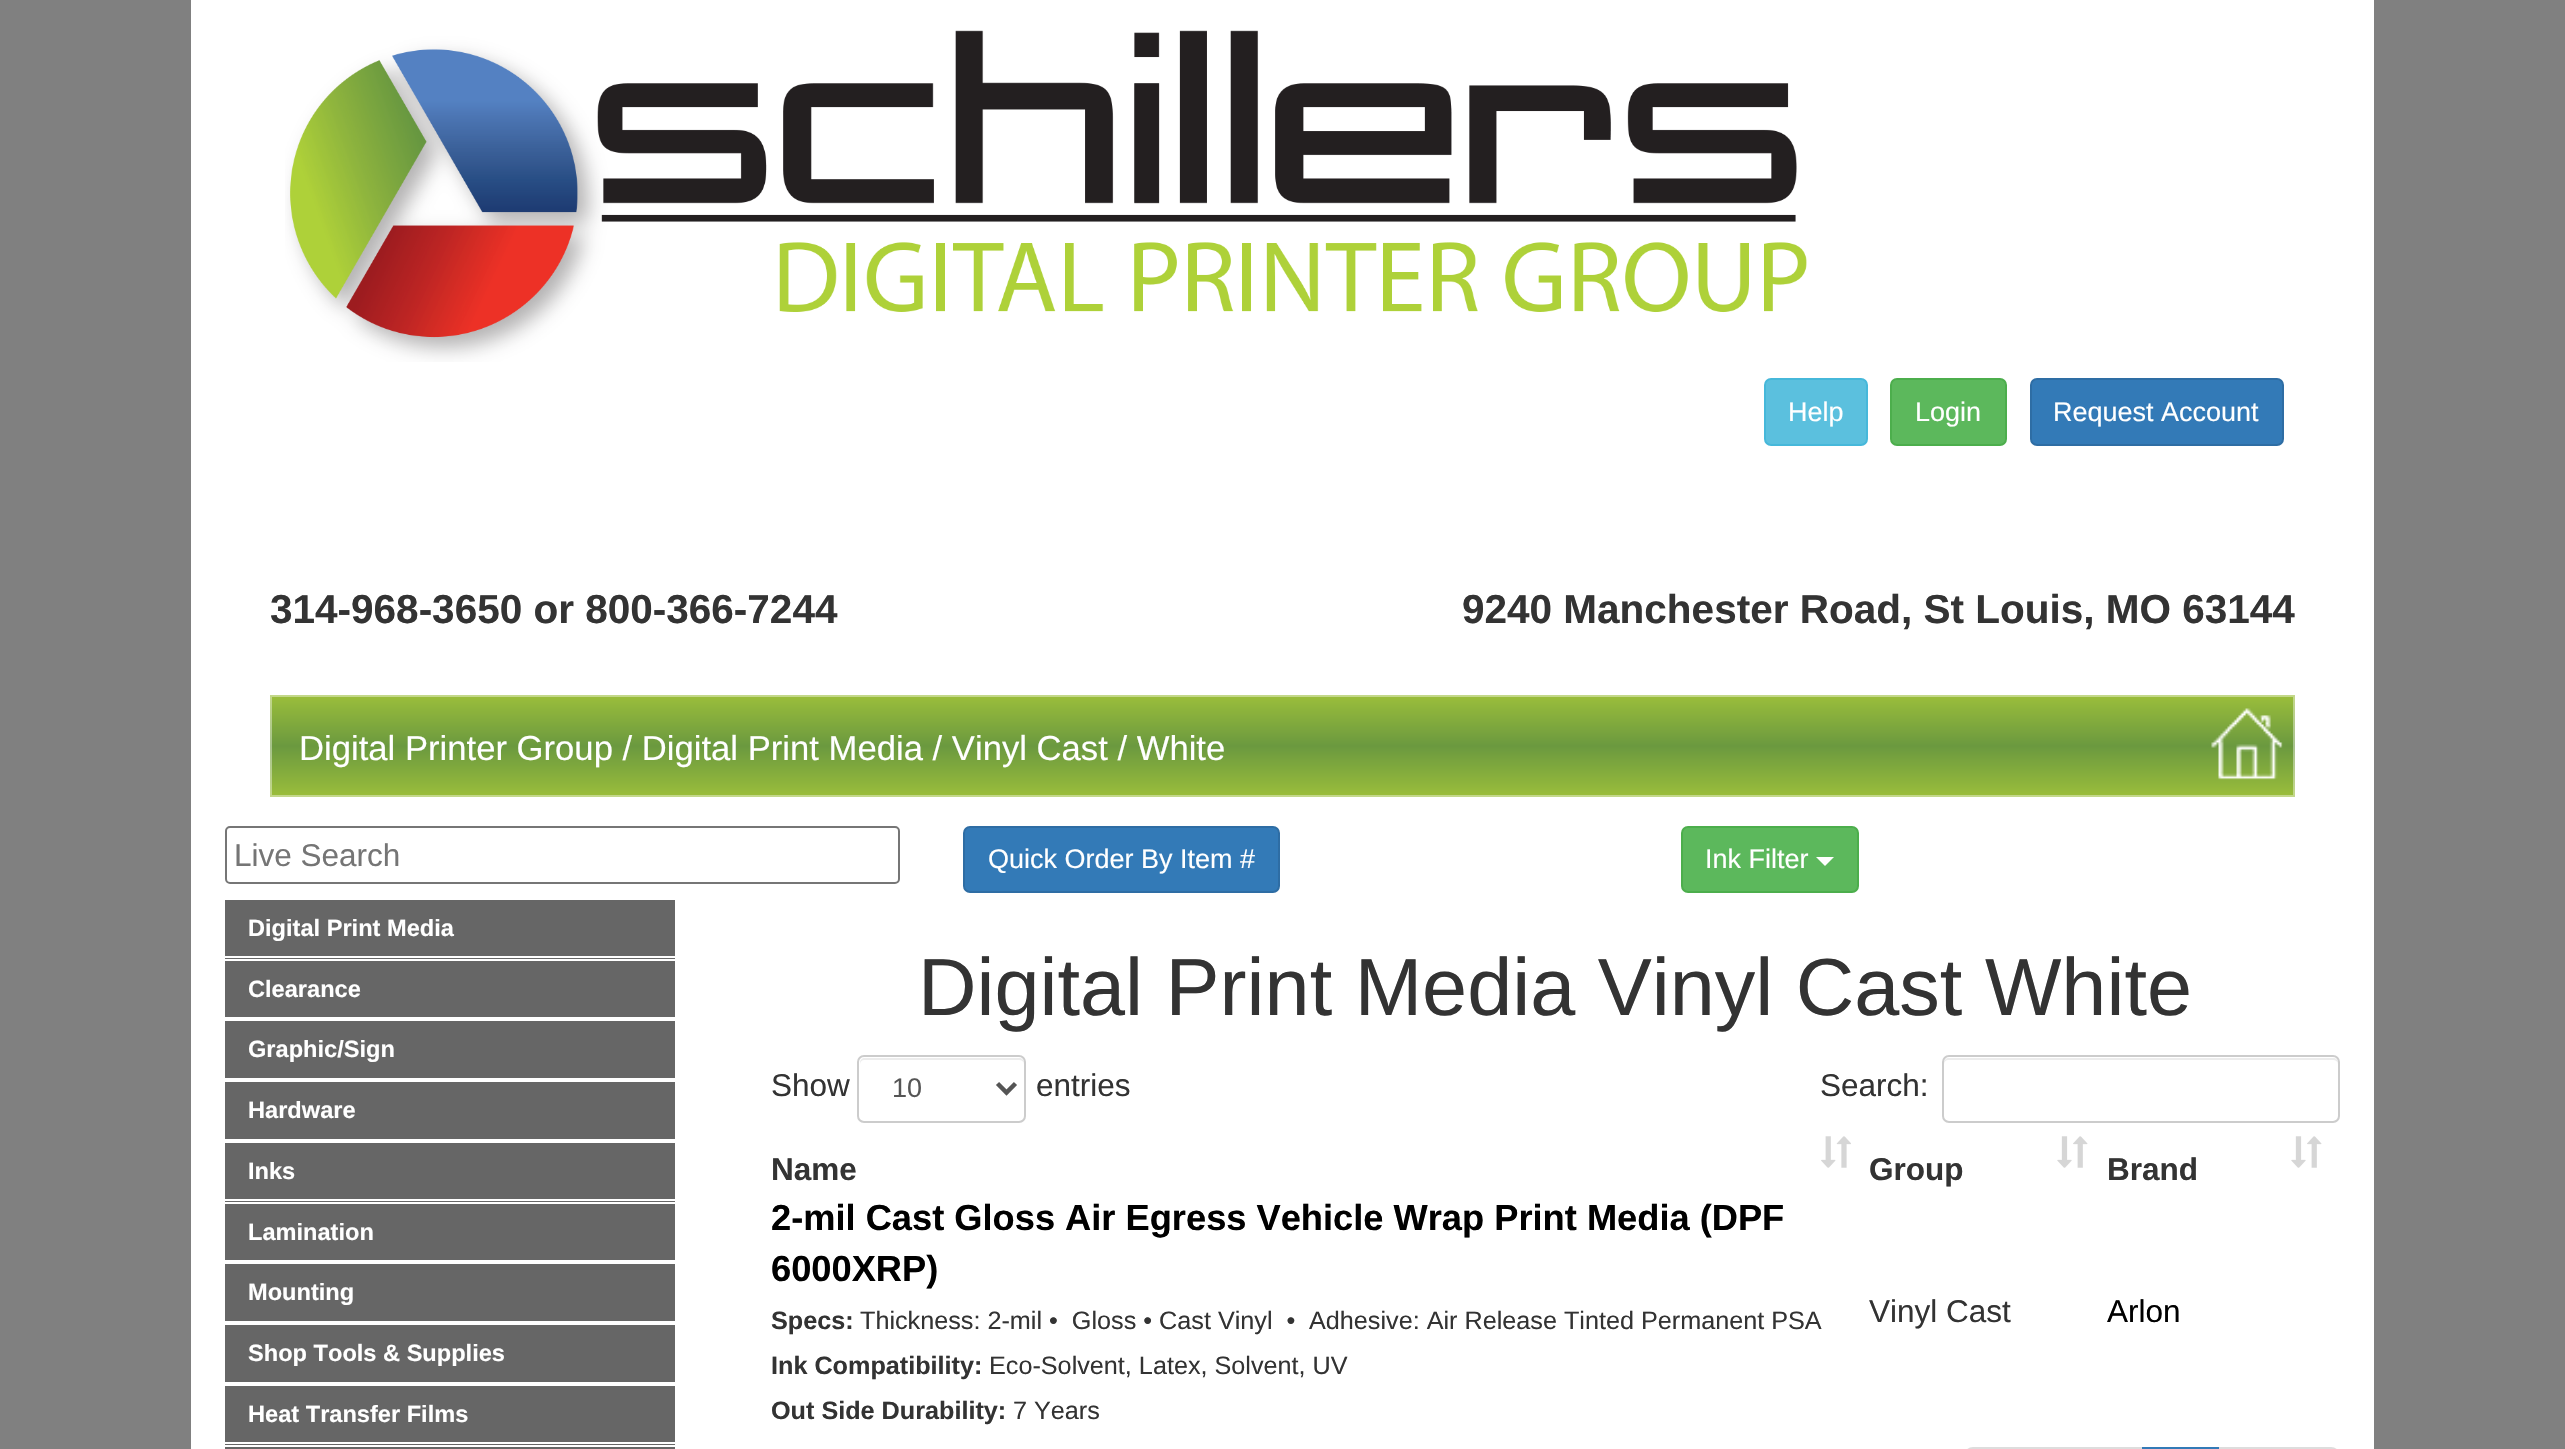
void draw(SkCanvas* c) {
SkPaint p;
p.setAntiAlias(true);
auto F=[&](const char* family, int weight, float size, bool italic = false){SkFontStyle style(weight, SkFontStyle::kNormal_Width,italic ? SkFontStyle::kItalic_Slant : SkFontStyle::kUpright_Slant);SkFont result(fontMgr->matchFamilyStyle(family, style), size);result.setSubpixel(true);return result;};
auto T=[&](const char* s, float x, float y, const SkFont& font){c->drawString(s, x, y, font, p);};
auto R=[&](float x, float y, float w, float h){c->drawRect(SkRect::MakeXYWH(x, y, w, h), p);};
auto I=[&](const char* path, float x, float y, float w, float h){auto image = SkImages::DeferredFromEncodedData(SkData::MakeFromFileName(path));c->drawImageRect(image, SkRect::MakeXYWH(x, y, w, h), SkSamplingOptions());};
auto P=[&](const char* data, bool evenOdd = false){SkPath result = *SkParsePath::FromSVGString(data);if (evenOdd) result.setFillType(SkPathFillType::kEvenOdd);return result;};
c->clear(0xff808080);
p.setColor(0xffffffff);
R(191,0,2183,1449);
I("1.png",285,30,1522,332);
p.setColor(0xff5bc0de);
c->drawRoundRect(SkRect::MakeXYWH(1765,379,102,66),6,6,p);
p.setStroke(true);
p.setStrokeWidth(2);
p.setColor(0xff46b8da);
c->drawRoundRect(SkRect::MakeXYWH(1765,379,102,66),6,6,p);
auto f1 = F("Liberation Sans",400,27);
p.setStroke(false);
p.setColor(0xffffffff);
T("Help",1788,421,f1);
p.setColor(0xff5cb85c);
c->drawRoundRect(SkRect::MakeXYWH(1891,379,115,66),6,6,p);
p.setStroke(true);
p.setColor(0xff4cae4c);
c->drawRoundRect(SkRect::MakeXYWH(1891,379,115,66),6,6,p);
p.setStroke(false);
p.setColor(0xffffffff);
T("Login",1915,421,f1);
p.setColor(0xff337ab7);
c->drawRoundRect(SkRect::MakeXYWH(2031,379,252,66),6,6,p);
p.setStroke(true);
p.setColor(0xff2e6da4);
c->drawRoundRect(SkRect::MakeXYWH(2031,379,252,66),6,6,p);
p.setStroke(false);
p.setColor(0xffffffff);
T("Request Account",2053,421,f1);
auto f2 = F("Liberation Sans",700,40.5);
p.setColor(0xff333333);
T("314-968-3650 or 800-366-7244",270,623,f2);
T("9240 Manchester Road, St Louis, MO 63144",1462,623,f2);
{
const SkColor colors[] = {0xff9bbe3b,0xff6b993f,0xff9bbe3b};
const float stops[] = {0,.5,1};
const SkPoint ends[] = {{1283,695}, {1283,797}};
p.setShader(SkGradientShader::MakeLinear(ends, colors, stops, 3, SkTileMode::kClamp));
p.setAlpha(255);
}
R(270,695,2025,102);
p.setStroke(true);
p.setShader(nullptr);
p.setColor(0x66ffffff);
c->drawRect(SkRect::MakeXYWH(271,696,2023,100),p);
auto f3 = F("Liberation Sans",400,34.65);
p.setStroke(false);
p.setColor(0xffffffff);
T("Digital Printer Group / Digital Print Media / Vinyl Cast / White",299,760,f3);
I("2.png",2211,708,72,72);
p.setStroke(true);
p.setColor(0xff767676);
c->drawRoundRect(SkRect::MakeXYWH(226,827,673,56),4,4,p);
auto f4 = F("Liberation Sans",400,31.5);
p.setStroke(false);
p.setColor(0xff757575);
T("Live Search",234,866,f4);
p.setColor(0xff337ab7);
c->drawRoundRect(SkRect::MakeXYWH(964,827,315,65),6,6,p);
p.setStroke(true);
p.setColor(0xff2e6da4);
c->drawRoundRect(SkRect::MakeXYWH(964,827,315,65),6,6,p);
p.setStroke(false);
p.setColor(0xffffffff);
T("Quick Order By Item #",988,868,f1);
p.setColor(0xff5cb85c);
c->drawRoundRect(SkRect::MakeXYWH(1682,827,176,65),6,6,p);
p.setStroke(true);
p.setColor(0xff4cae4c);
c->drawRoundRect(SkRect::MakeXYWH(1682,827,176,65),6,6,p);
p.setStroke(false);
p.setColor(0xffffffff);
T("Ink Filter",1705,868,f1);
c->drawPath(P("M1816 857h18l-9 9z"),p);
p.setColor(0xff666666);
R(225,900,450,549);
p.setColor(0xffffffff);
R(225,956,450,2);
auto f5 = F("Liberation Sans",700,23.6);
T("Digital Print Media",248,936,f5);
R(225,959,450,2);
R(225,1017,450,4);
T("Clearance",248,997,f5);
R(225,1078,450,4);
T("Graphic/Sign",248,1057,f5);
R(225,1139,450,4);
T("Hardware",248,1118,f5);
R(225,1199,450,2);
T("Inks",248,1179,f5);
R(225,1202,450,2);
R(225,1260,450,4);
T("Lamination",248,1240,f5);
R(225,1321,450,4);
T("Mounting",248,1300,f5);
R(225,1382,450,4);
T("Shop Tools & Supplies",248,1361,f5);
R(225,1442,450,2);
T("Heat Transfer Films",248,1422,f5);
R(225,1445,450,2);
auto f6 = F("Liberation Sans",400,81);
p.setColor(0xff333333);
T("Digital Print Media Vinyl Cast White",918,1015,f6);
T("Show",771,1096,f4);
p.setColor(0xffececec);
c->drawPath(P("M864 1060h155c3 0 5 2 5 4v-1c0-3-2-5-5-5h-154c-3 0-5 2-5 5v1c0-2 2-4 4-4z"),p);
p.setStroke(true);
p.setColor(0xffcccccc);
c->drawRoundRect(SkRect::MakeXYWH(858,1056,167,66),6,6,p);
p.setStrokeWidth(4.5);
p.setColor(0xff555555);
c->drawPath(P("M997.5 1083.5l9 9l9-9"),p);
p.setStroke(false);
T("10",892,1097,f1);
p.setColor(0xff333333);
T("entries",1036,1096,f4);
T("Search:",1820,1096,f4);
p.setColor(0xffececec);
c->drawPath(P("M1948 1060h385c3 0 5 2 5 4v-1c0-3-2-5-5-5h-384c-3 0-5 2-5 5v1c0-2 2-4 4-4z"),p);
p.setStroke(true);
p.setStrokeWidth(2);
p.setColor(0xffcccccc);
c->drawRoundRect(SkRect::MakeXYWH(1943,1056,396,66),6,6,p);
auto f7 = F("Liberation Sans",700,31.5);
p.setStroke(false);
p.setColor(0xff333333);
T("Name",771,1180,f7);
I("3.png",1821,1136,30,32);
I("4.png",2057,1136,31,32);
T("Group",1869,1180,f7);
T("Brand",2107,1180,f7);
I("4.png",2291,1136,31,32);
auto f8 = F("Liberation Sans",700,36.25);
p.setColor(0xff000000);
T("2-mil Cast Gloss Air Egress Vehicle Wrap Print Media (DPF",771,1230,f8);
T("6000XRP)",771,1281,f8);
auto f9 = F("Liberation Sans",700,25.2);
p.setColor(0xff333333);
T("Specs:",771,1329,f9);
auto f10 = F("Liberation Sans",400,25.2);
T("Thickness: 2-mil •  Gloss • Cast Vinyl  •",860,1329,f10);
T("Adhesive: Air Release Tinted Permanent PSA",1309,1329,f10);
T("Ink Compatibility:",771,1374,f9);
T("Eco-Solvent, Latex, Solvent, UV",989,1374,f10);
T("Out Side Durability:",771,1419,f9);
T("7 Years",1013,1419,f10);
T("Vinyl Cast",1869,1322,f4);
p.setColor(0xff000000);
T("Arlon",2107,1322,f4);
p.setStroke(true);
p.setColor(0xffdddddd);
c->drawPath(P("M1973 1448h170v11h-170c-4.5 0-8-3.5-8-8v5c0-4.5 3.5-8 8-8z"),p);
c->drawPath(P("M2217 1448h114c4.5 0 8 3.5 8 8v-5c0 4.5-3.5 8-8 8h-114z"),p);
p.setStroke(false);
p.setColor(0xff337ab7);
R(2142,1447,77,2);
}
